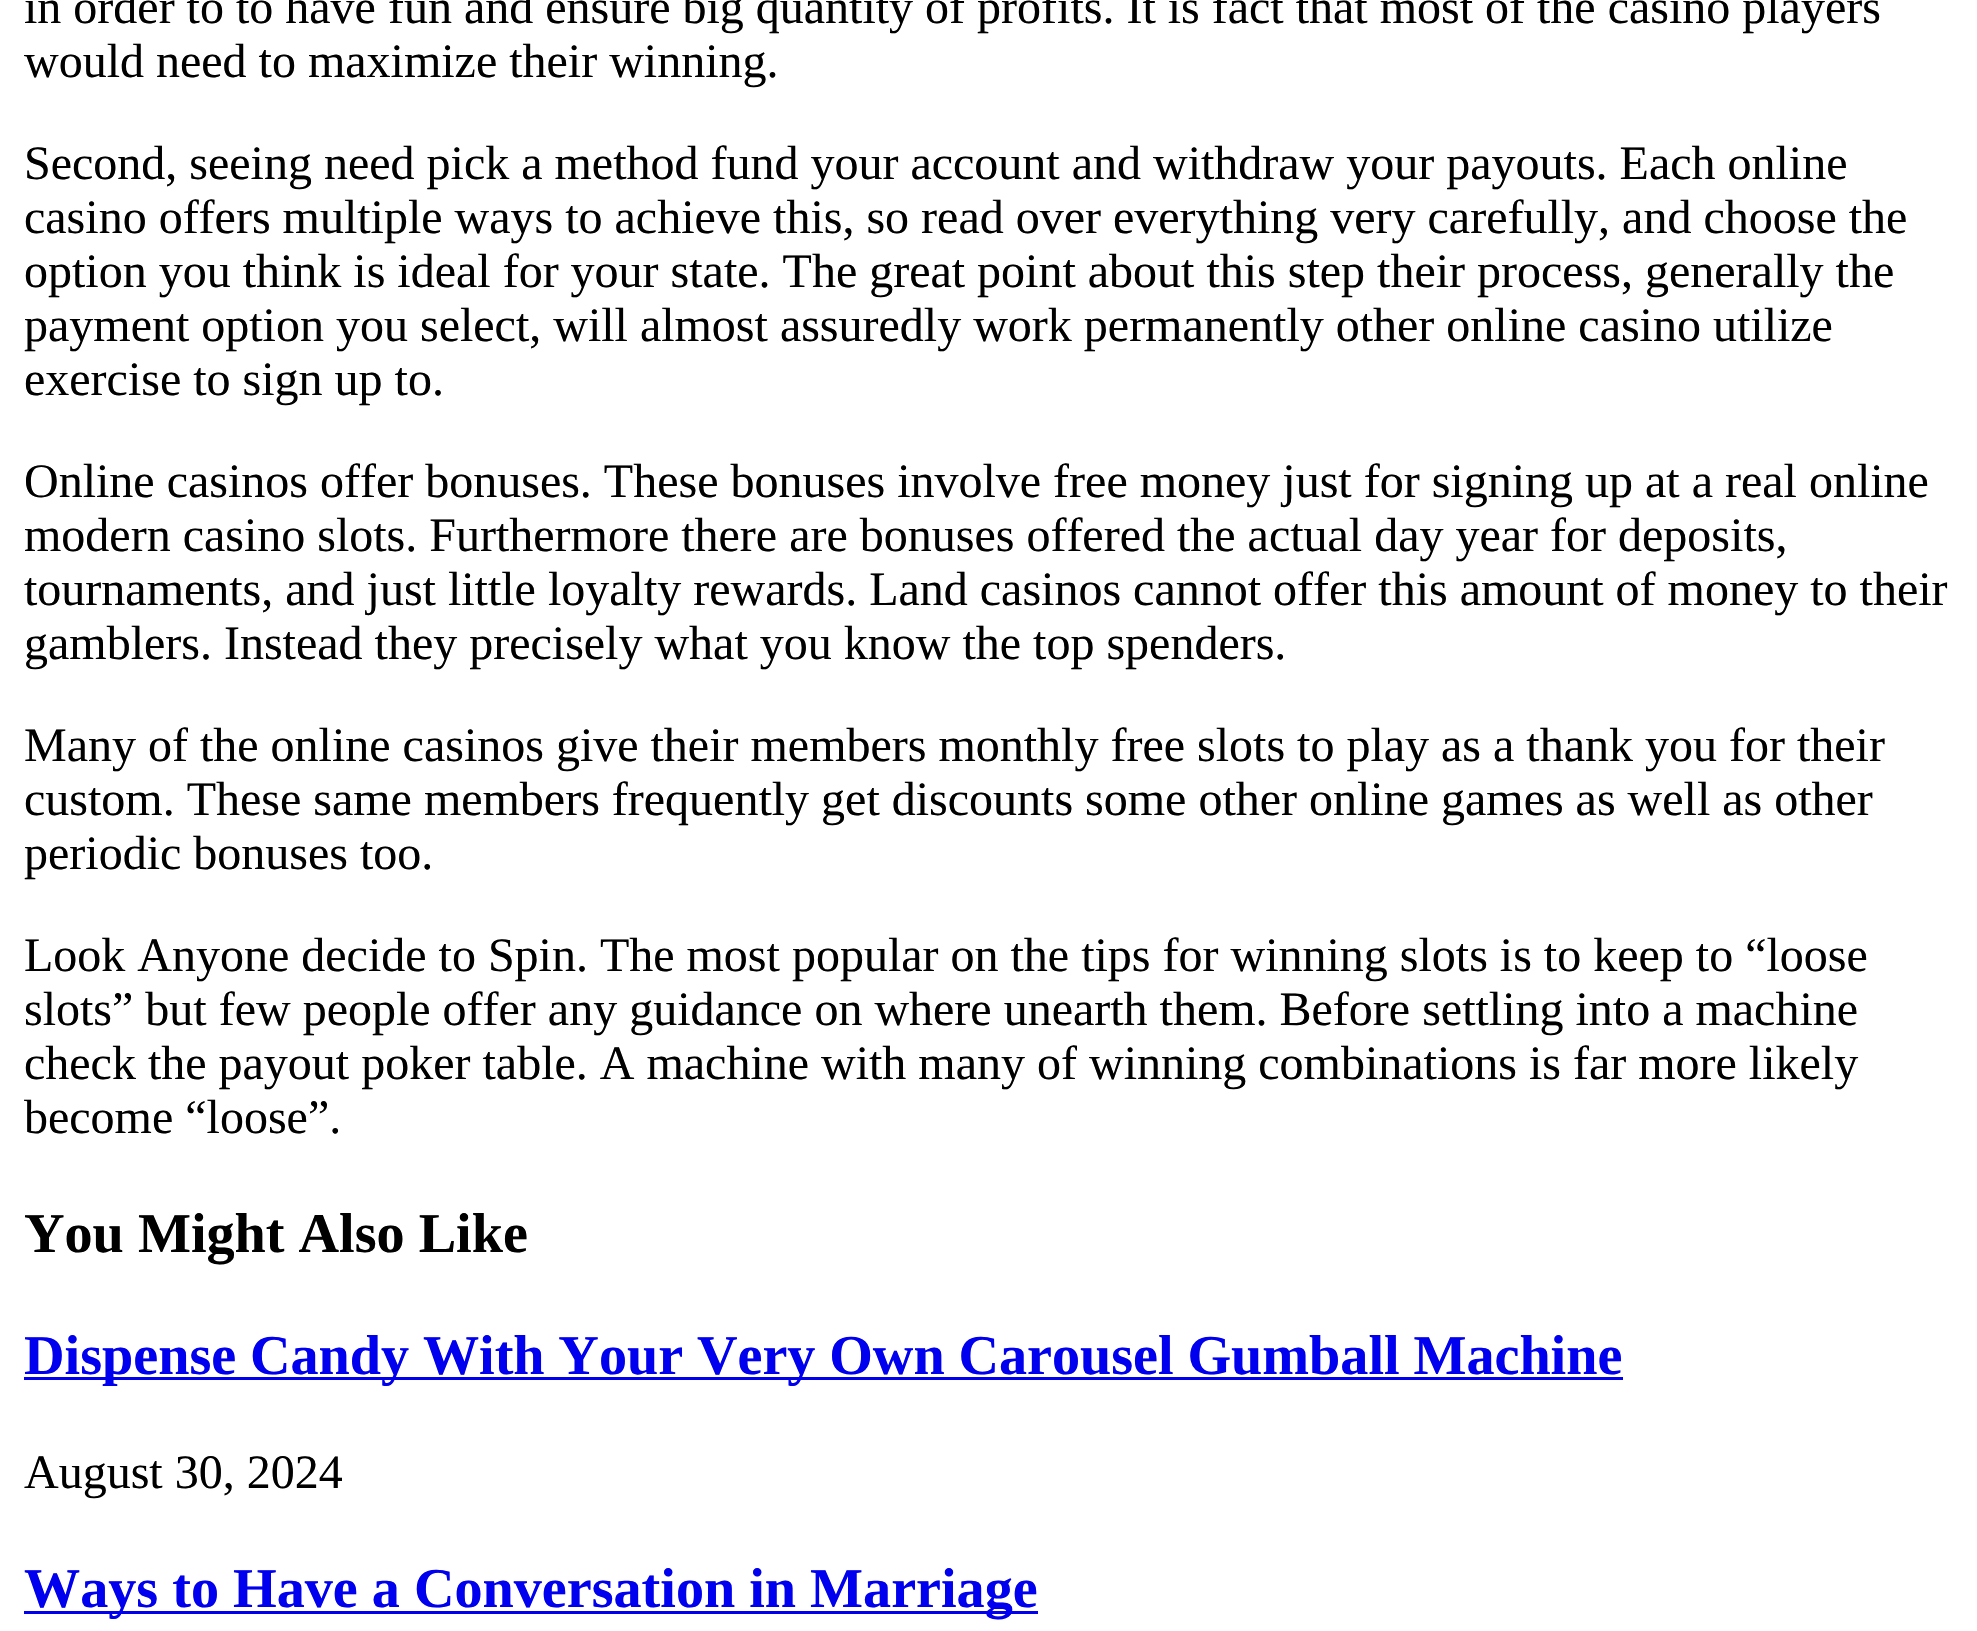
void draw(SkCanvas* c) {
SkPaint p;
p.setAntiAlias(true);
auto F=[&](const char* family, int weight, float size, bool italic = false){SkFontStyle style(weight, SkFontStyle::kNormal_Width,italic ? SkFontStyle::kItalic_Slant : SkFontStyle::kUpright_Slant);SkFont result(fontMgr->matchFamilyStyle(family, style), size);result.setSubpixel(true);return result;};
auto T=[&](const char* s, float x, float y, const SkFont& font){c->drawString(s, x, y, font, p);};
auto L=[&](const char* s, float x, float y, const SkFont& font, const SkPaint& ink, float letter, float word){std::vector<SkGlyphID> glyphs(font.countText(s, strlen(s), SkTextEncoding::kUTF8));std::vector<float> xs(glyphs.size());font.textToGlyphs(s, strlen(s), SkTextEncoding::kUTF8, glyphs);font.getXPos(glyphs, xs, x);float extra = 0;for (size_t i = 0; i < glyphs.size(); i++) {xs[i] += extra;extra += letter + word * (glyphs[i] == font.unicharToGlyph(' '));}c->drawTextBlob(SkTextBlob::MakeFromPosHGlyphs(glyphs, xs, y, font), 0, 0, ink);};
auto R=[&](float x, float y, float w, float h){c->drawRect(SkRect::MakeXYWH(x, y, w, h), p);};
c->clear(0xffffffff);
auto f1 = F("Liberation Serif",400,48);
p.setColor(0xff000000);
T("in order to to have fun and ensure big quantity of profits. It is fact that most of the casino players",24,23,f1);
T("would need to maximize their winning.",24,77,f1);
T("Second, seeing need pick a method fund your account and withdraw your payouts. Each online",24,179,f1);
T("casino offers multiple ways to achieve this, so read over everything very carefully, and choose the",24,233,f1);
T("option you think is ideal for your state. The great point about this step their process, generally the",24,287,f1);
T("payment option you select, will almost assuredly work permanently other online casino utilize",24,341,f1);
T("exercise to sign up to.",24,395,f1);
T("Online casinos offer bonuses. These bonuses involve free money just for signing up at a real online",24,497,f1);
T("modern casino slots. Furthermore there are bonuses offered the actual day year for deposits,",24,551,f1);
T("tournaments, and just little loyalty rewards. Land casinos cannot offer this amount of money to their",24,605,f1);
T("gamblers. Instead they precisely what you know the top spenders.",24,659,f1);
T("Many of the online casinos give their members monthly free slots to play as a thank you for their",24,761,f1);
T("custom. These same members frequently get discounts some other online games as well as other",24,815,f1);
T("periodic bonuses too.",24,869,f1);
T("Look Anyone decide to Spin. The most popular on the tips for winning slots is to keep to “loose",24,971,f1);
T("slots” but few people offer any guidance on where unearth them. Before settling into a machine",24,1025,f1);
T("check the payout poker table. A machine with many of winning combinations is far more likely",24,1079,f1);
T("become “loose”.",24,1133,f1);
auto f2 = F("Liberation Serif",700,56.15);
T("You Might Also Like",24,1252,f2);
p.setColor(0xff0000ee);
R(24,1377,1599,3);
L("Dispense Candy With Your Very Own Carousel Gumball Machine",24,1374,f2,p,0,-.25);
p.setColor(0xff000000);
T("August 30, 2024",24,1488,f1);
p.setColor(0xff0000ee);
R(24,1611,1014,3);
T("Ways to Have a Conversation in Marriage",24,1607,f2);
}
